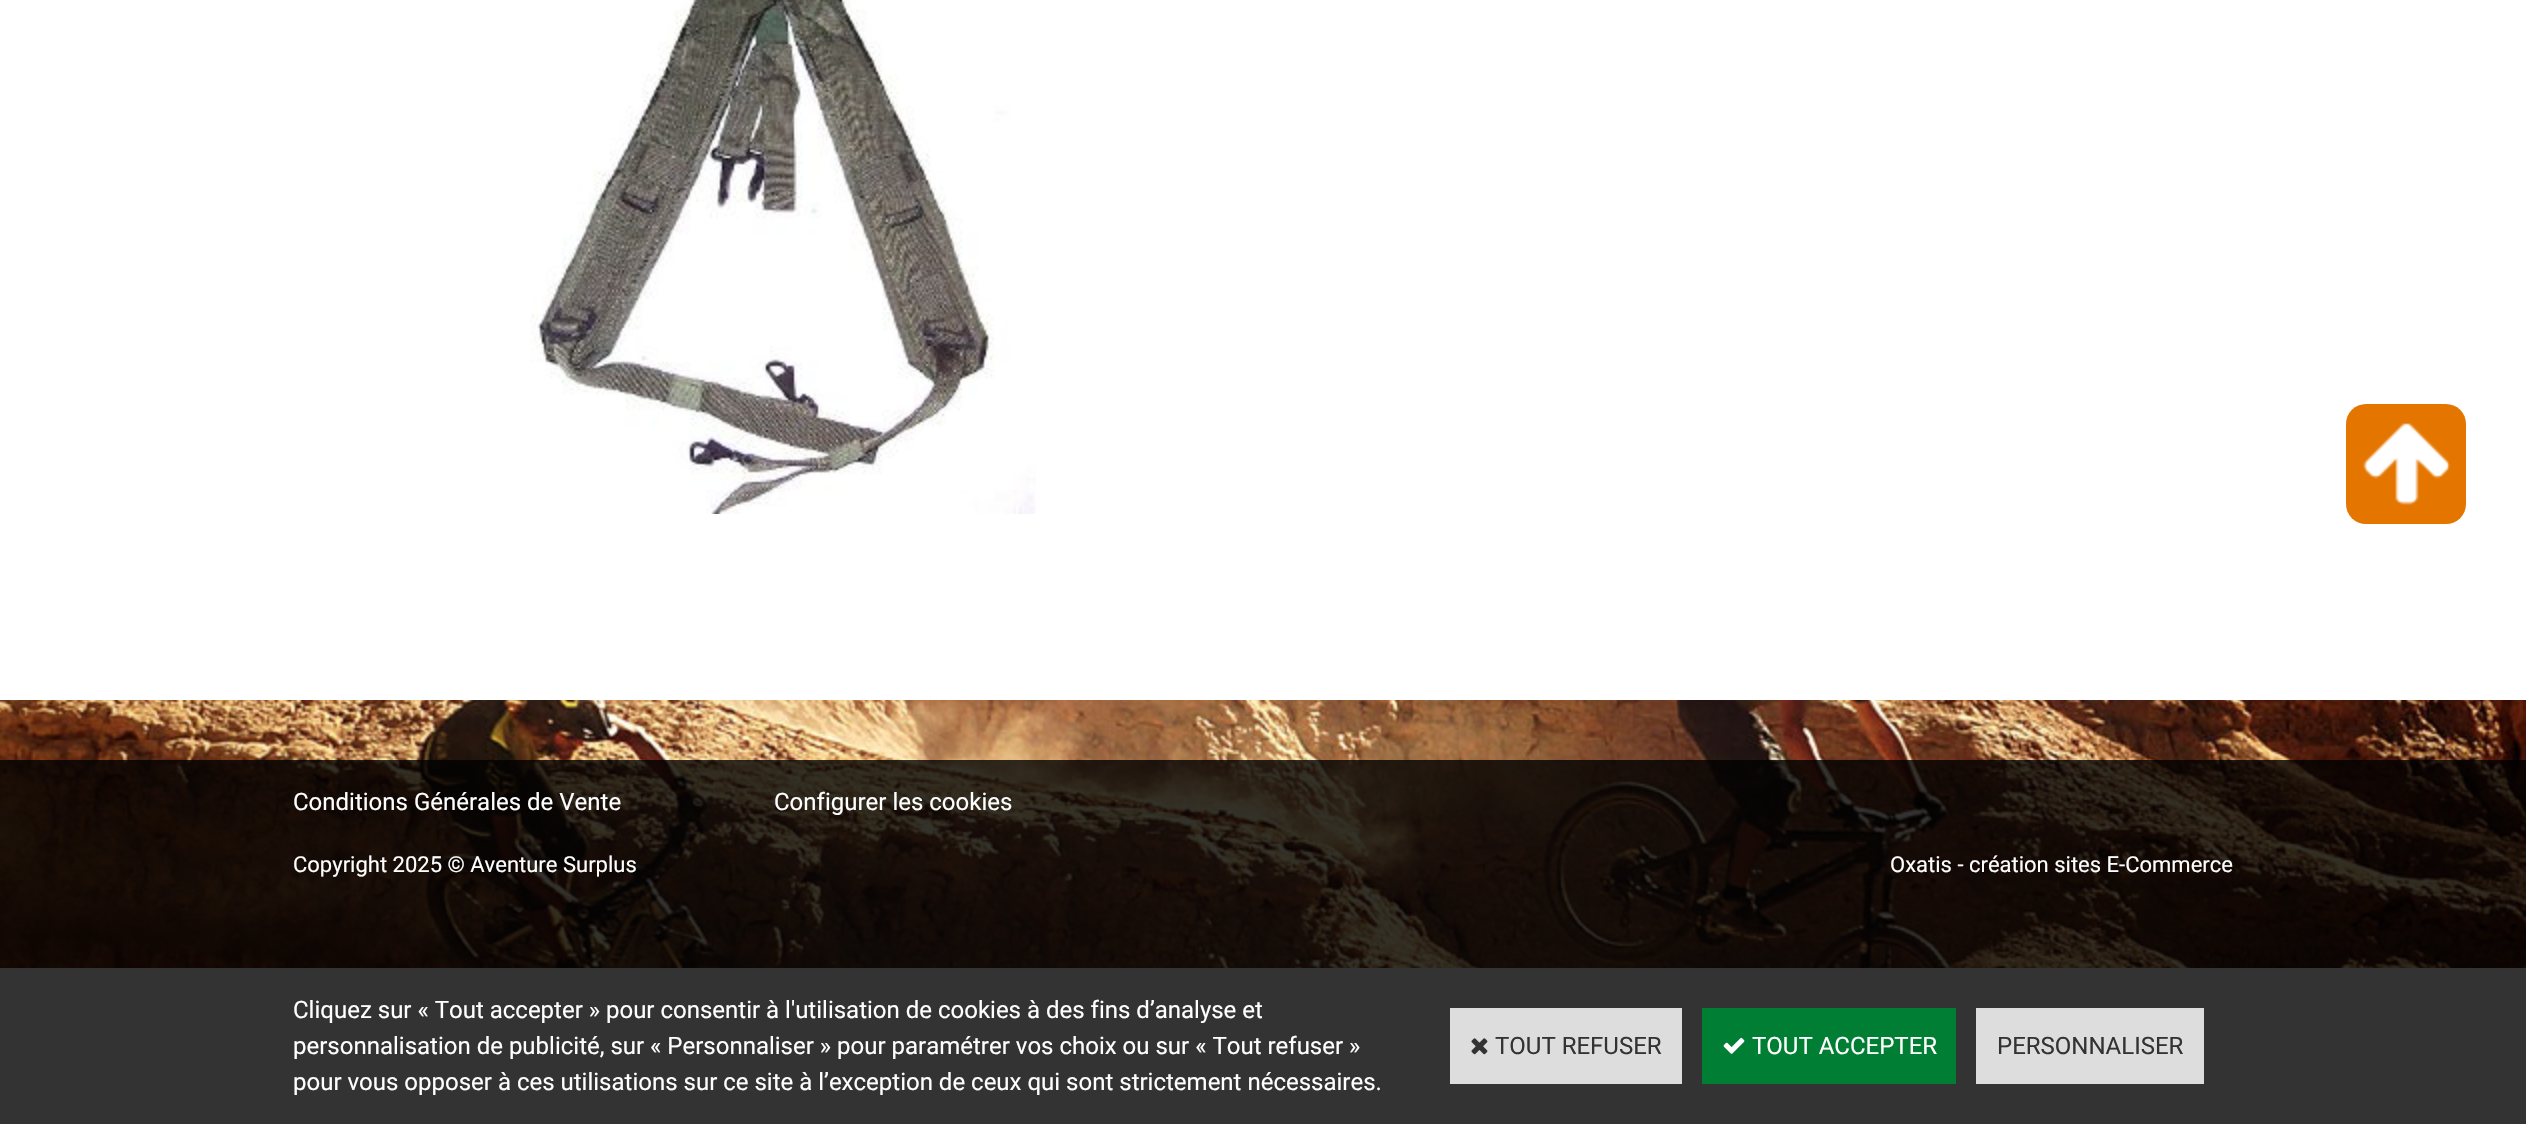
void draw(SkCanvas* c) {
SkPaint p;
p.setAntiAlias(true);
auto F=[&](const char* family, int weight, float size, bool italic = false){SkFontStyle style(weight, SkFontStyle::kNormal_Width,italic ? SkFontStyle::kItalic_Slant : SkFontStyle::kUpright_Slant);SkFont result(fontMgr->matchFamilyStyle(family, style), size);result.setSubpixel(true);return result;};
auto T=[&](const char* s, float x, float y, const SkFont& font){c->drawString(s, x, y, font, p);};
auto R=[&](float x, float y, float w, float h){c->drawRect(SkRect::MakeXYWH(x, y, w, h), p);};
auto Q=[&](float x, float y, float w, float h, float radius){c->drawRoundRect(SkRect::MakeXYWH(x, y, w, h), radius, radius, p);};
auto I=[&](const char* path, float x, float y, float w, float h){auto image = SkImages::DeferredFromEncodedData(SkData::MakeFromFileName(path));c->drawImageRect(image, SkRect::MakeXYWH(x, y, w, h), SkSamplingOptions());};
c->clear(0xffffffff);
I("1.png",0,700,2526,268);
I("2.png",530,0,506,514);
p.setColor(0xffe47600);
Q(2346,404,120,120,20);
I("3.png",2363,423,88,82);
p.setColor(0xcc000000);
R(0,760,2526,208);
auto f1 = F("Roboto",400,24);
p.setColor(0xffffffff);
T("Conditions Générales de Vente",293,810,f1);
T("Configurer les cookies",774,810,f1);
auto f2 = F("Roboto",400,22);
T("Copyright 2025 © Aventure Surplus",293,872,f2);
T("Oxatis - création sites E-Commerce",1890,872,f2);
p.setColor(0xff333333);
R(0,968,2526,156);
p.setColor(0xffffffff);
T("Cliquez sur « Tout accepter » pour consentir à l'utilisation de cookies à des fins d’analyse et",293,1018,f1);
T("personnalisation de publicité, sur « Personnaliser » pour paramétrer vos choix ou sur « Tout refuser »",293,1054,f1);
T("pour vous opposer à ces utilisations sur ce site à l’exception de ceux qui sont strictement nécessaires.",293,1090,f1);
p.setColor(0xffdddddd);
R(1450,1008,232,76);
I("4.png",1471,1038,17,17);
p.setColor(0xff333333);
T("TOUT REFUSER",1495,1054,f1);
p.setColor(0xff007e33);
R(1702,1008,254,76);
I("5.png",1723,1037,22,17);
p.setColor(0xffffffff);
T("TOUT ACCEPTER",1752,1054,f1);
p.setColor(0xffdddddd);
R(1976,1008,228,76);
p.setColor(0xff333333);
T("PERSONNALISER",1997,1054,f1);
}
